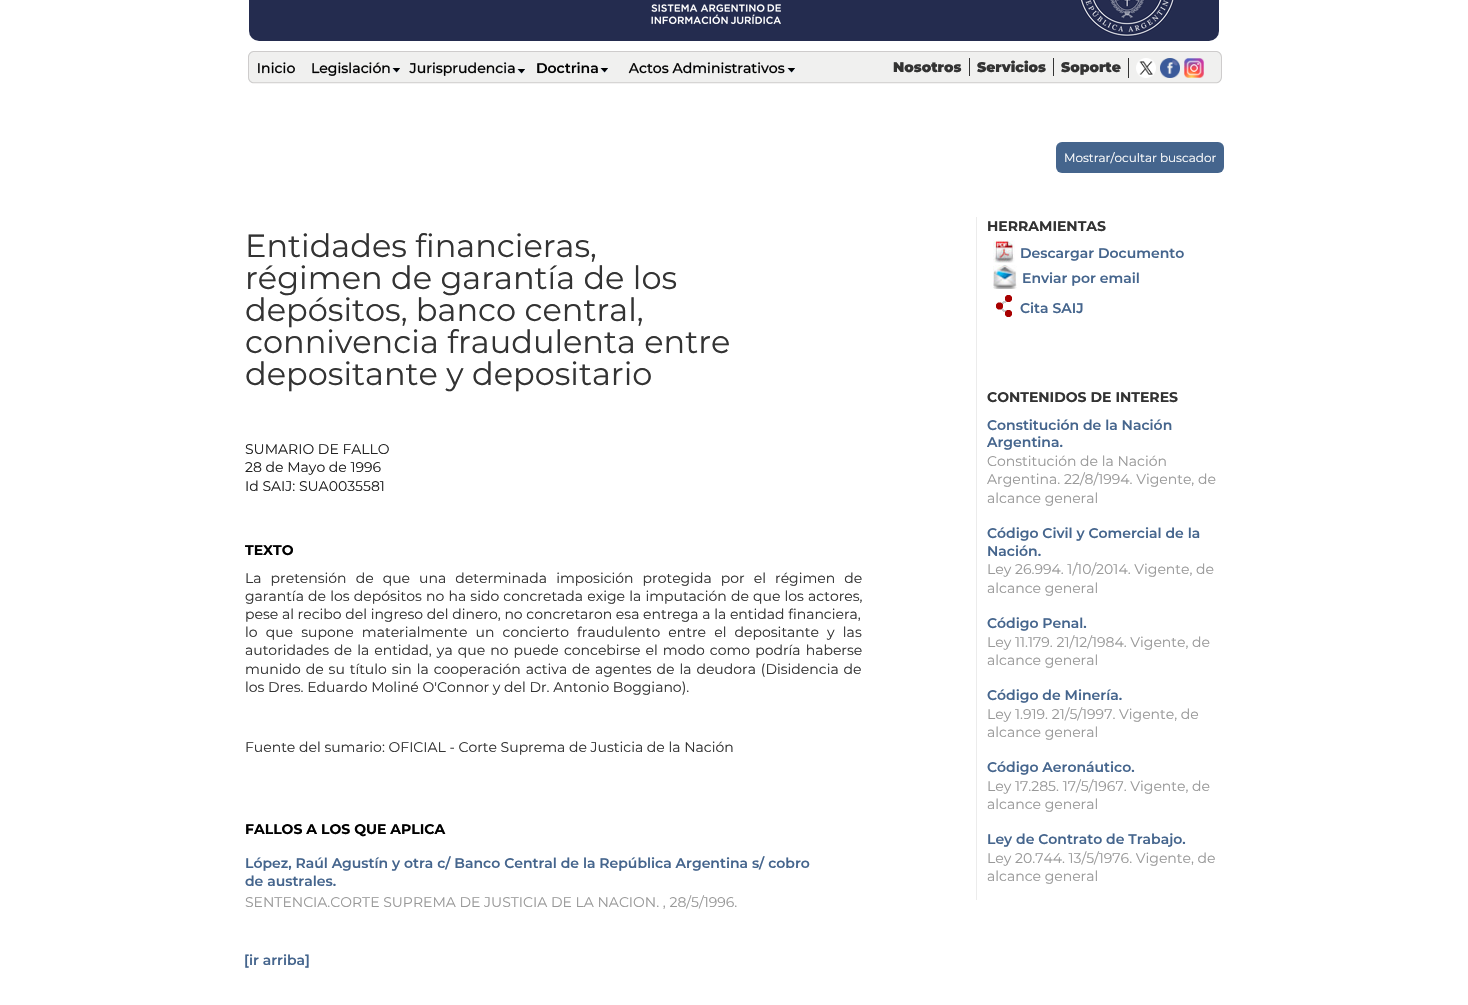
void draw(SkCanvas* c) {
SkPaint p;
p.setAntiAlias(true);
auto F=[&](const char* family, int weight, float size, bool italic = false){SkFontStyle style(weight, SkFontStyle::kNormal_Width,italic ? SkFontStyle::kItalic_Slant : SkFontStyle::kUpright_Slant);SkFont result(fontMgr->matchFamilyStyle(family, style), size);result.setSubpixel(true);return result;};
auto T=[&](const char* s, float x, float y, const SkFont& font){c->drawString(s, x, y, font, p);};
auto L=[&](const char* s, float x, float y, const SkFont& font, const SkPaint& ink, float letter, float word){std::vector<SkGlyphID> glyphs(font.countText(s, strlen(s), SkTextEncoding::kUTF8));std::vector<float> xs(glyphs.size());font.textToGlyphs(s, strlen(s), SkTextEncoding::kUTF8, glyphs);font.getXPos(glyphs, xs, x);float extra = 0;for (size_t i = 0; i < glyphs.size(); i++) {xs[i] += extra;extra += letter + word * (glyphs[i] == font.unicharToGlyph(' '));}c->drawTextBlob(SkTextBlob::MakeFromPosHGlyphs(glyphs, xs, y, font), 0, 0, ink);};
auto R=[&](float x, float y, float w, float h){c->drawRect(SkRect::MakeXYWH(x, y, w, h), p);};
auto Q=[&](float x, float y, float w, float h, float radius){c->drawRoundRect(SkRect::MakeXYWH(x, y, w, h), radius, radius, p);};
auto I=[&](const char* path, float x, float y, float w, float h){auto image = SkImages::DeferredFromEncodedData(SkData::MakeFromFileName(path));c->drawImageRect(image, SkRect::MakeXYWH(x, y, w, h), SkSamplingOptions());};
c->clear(0xffffffff);
p.setColor(0xff242c4f);
Q(249,-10,970,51,10);
I("1.png",651,4,130,20);
I("2.png",1080,0,95,37);
I("3.png",248,51,974,33);
I("4.png",258,62,37,12);
I("5.png",312,62,88,14);
I("6.png",409,62,116,14);
I("7.png",537,62,71,12);
I("8.png",628,62,167,12);
auto f1 = F("Montserrat",900,14);
p.setColor(0xff333333);
T("Nosotros",893,72,f1);
R(969,58,1,18);
T("Servicios",977,72,f1);
R(1053,58,1,18);
T("Soporte",1061,72,f1);
R(1128,58,1,20);
I("9.png",1136,58,20,20);
I("10.png",1160,58,20,20);
I("11.png",1184,58,20,20);
p.setColor(0xff45658d);
Q(1056,142,168,31,6);
auto f2 = F("Montserrat",400,12);
p.setColor(0xffffffff);
T("Mostrar/ocultar buscador",1064,162,f2);
auto f3 = F("Montserrat",400,32);
p.setColor(0xff333333);
T("Entidades financieras,",245,257,f3);
T("régimen de garantía de los",245,289,f3);
T("depósitos, banco central,",245,321,f3);
T("connivencia fraudulenta entre",245,353,f3);
T("depositante y depositario",245,385,f3);
auto f4 = F("Montserrat",400,14);
p.setColor(0xff222222);
T("SUMARIO DE FALLO",245,454,f4);
T("28 de Mayo de 1996",245,472,f4);
T("Id SAIJ: SUA0035581",245,491,f4);
auto f5 = F("Montserrat",700,14);
p.setColor(0xff000000);
T("TEXTO",245,555,f5);
p.setColor(0xff333333);
L("La pretensión de que una determinada imposición protegida por el régimen de",245,583,f4,p,0,5.4);
L("garantía de los depósitos no ha sido concretada exige la imputación de que los actores,",245,601,f4,p,0,.5);
T("pese al recibo del ingreso del dinero, no concretaron esa entrega a la entidad financiera,",245,619,f4);
L("lo que supone materialmente un concierto fraudulento entre el depositante y las",245,637,f4,p,0,4.5);
L("autoridades de la entidad, ya que no puede concebirse el modo como podría haberse",245,655,f4,p,0,1.4);
L("munido de su título sin la cooperación activa de agentes de la deudora (Disidencia de",245,674,f4,p,0,1.25);
T("los Dres. Eduardo Moliné O'Connor y del Dr. Antonio Boggiano).",245,692,f4);
T("Fuente del sumario: OFICIAL - Corte Suprema de Justicia de la Nación",245,752,f4);
p.setColor(0xff000000);
T("FALLOS A LOS QUE APLICA",245,834,f5);
auto f6 = F("Montserrat",600,14);
p.setColor(0xff45658d);
T("López, Raúl Agustín y otra c/ Banco Central de la República Argentina s/ cobro",245,868,f6);
T("de australes.",245,886,f6);
p.setColor(0xff999999);
T("SENTENCIA.CORTE SUPREMA DE JUSTICIA DE LA NACION. , 28/5/1996.",245,907,f4);
p.setColor(0xffececec);
R(976,217,1,683);
p.setColor(0xff333333);
T("HERRAMIENTAS",987,231,f5);
I("12.png",993,240,22,23);
p.setColor(0xff45658d);
T("Descargar Documento",1020,258,f6);
I("13.png",993,265,24,24);
T("Enviar por email",1022,283,f6);
I("14.png",996,295,16,22);
T("Cita SAIJ",1020,313,f6);
p.setColor(0xff333333);
T("CONTENIDOS DE INTERES",987,402,f5);
p.setColor(0xff45658d);
T("Constitución de la Nación",987,430,f6);
T("Argentina.",987,447,f6);
p.setColor(0xff999999);
T("Constitución de la Nación",987,466,f4);
T("Argentina. 22/8/1994. Vigente, de",987,484,f4);
T("alcance general",987,503,f4);
p.setColor(0xff45658d);
T("Código Civil y Comercial de la",987,538,f6);
T("Nación.",987,556,f6);
p.setColor(0xff999999);
T("Ley 26.994. 1/10/2014. Vigente, de",987,574,f4);
T("alcance general",987,593,f4);
p.setColor(0xff45658d);
T("Código Penal.",987,628,f6);
p.setColor(0xff999999);
T("Ley 11.179. 21/12/1984. Vigente, de",987,647,f4);
T("alcance general",987,665,f4);
p.setColor(0xff45658d);
T("Código de Minería.",987,700,f6);
p.setColor(0xff999999);
T("Ley 1.919. 21/5/1997. Vigente, de",987,719,f4);
T("alcance general",987,737,f4);
p.setColor(0xff45658d);
T("Código Aeronáutico.",987,772,f6);
p.setColor(0xff999999);
T("Ley 17.285. 17/5/1967. Vigente, de",987,791,f4);
T("alcance general",987,809,f4);
p.setColor(0xff45658d);
T("Ley de Contrato de Trabajo.",987,844,f6);
p.setColor(0xff999999);
T("Ley 20.744. 13/5/1976. Vigente, de",987,863,f4);
T("alcance general",987,881,f4);
p.setColor(0xff45658d);
T("[ir arriba]",244,965,f6);
}
